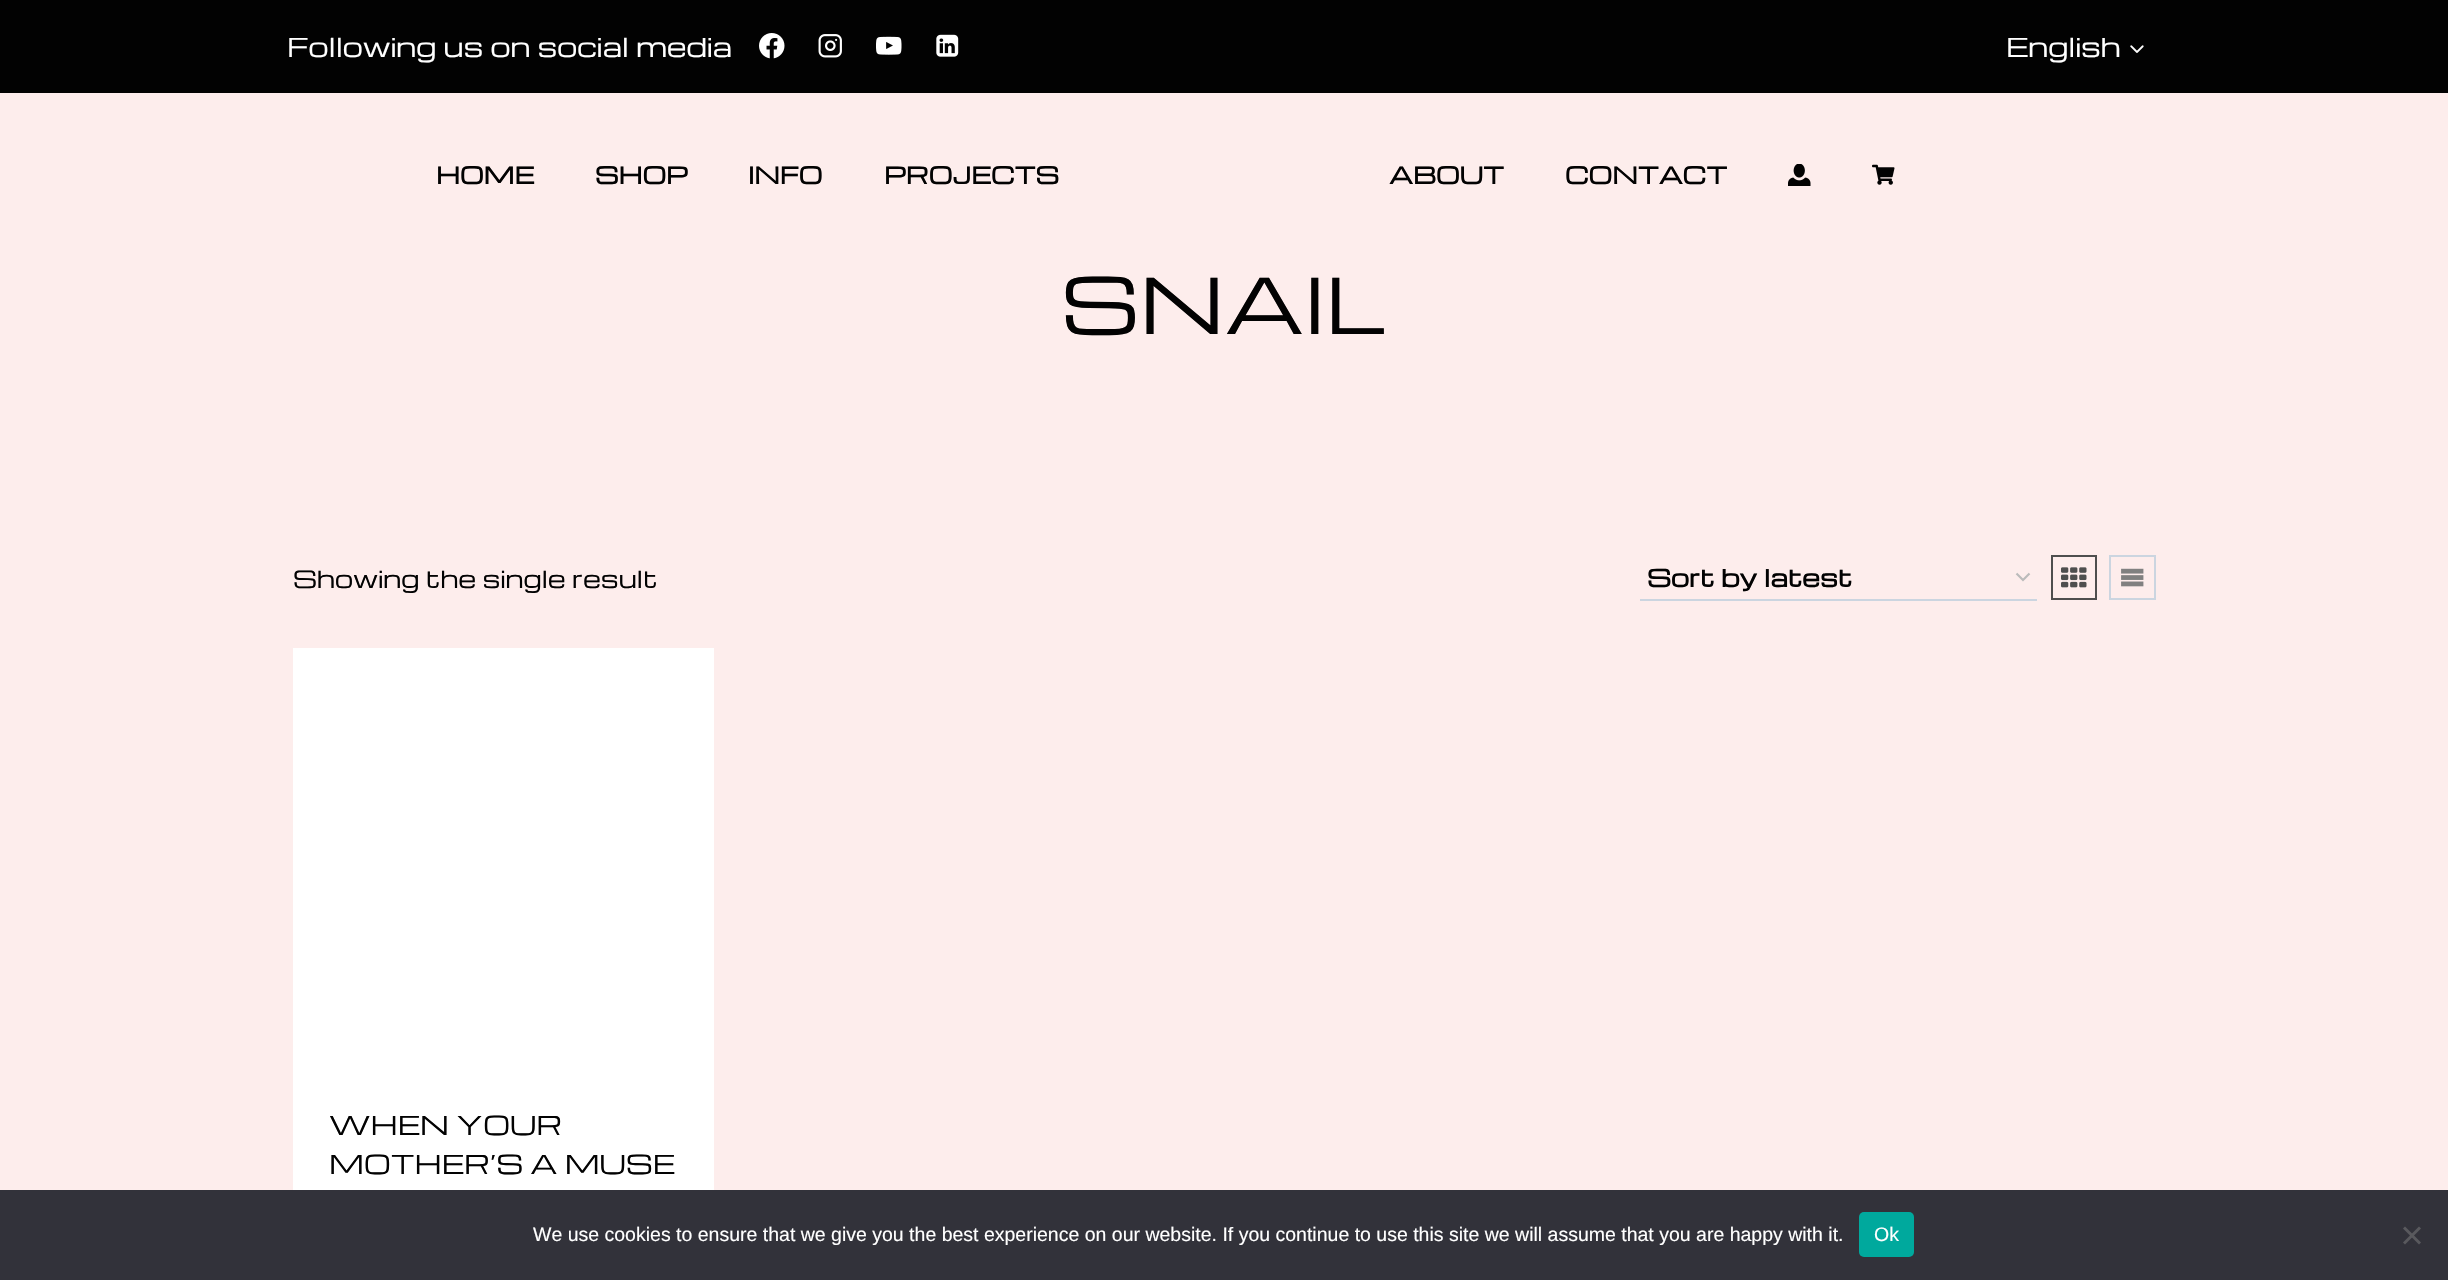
void draw(SkCanvas* c) {
SkPaint p;
p.setAntiAlias(true);
auto F=[&](const char* family, int weight, float size, bool italic = false){SkFontStyle style(weight, SkFontStyle::kNormal_Width,italic ? SkFontStyle::kItalic_Slant : SkFontStyle::kUpright_Slant);SkFont result(fontMgr->matchFamilyStyle(family, style), size);result.setSubpixel(true);return result;};
auto T=[&](const char* s, float x, float y, const SkFont& font){c->drawString(s, x, y, font, p);};
auto R=[&](float x, float y, float w, float h){c->drawRect(SkRect::MakeXYWH(x, y, w, h), p);};
auto Q=[&](float x, float y, float w, float h, float radius){c->drawRoundRect(SkRect::MakeXYWH(x, y, w, h), radius, radius, p);};
auto I=[&](const char* path, float x, float y, float w, float h){auto image = SkImages::DeferredFromEncodedData(SkData::MakeFromFileName(path));c->drawImageRect(image, SkRect::MakeXYWH(x, y, w, h), SkSamplingOptions());};
auto P=[&](const char* data, bool evenOdd = false){SkPath result = *SkParsePath::FromSVGString(data);if (evenOdd) result.setFillType(SkPathFillType::kEvenOdd);return result;};
c->clear(0xfffdedec);
p.setColor(0xff020202);
R(0,0,2448,93);
auto f1 = F("Michroma",400,25.5);
p.setColor(0xffffffff);
T("Following us on social media",287,57,f1);
I("1.png",759,33,26,26);
I("2.png",818,34,24,24);
I("3.png",876,36,26,19);
I("4.png",936,34,23,23);
T("English",2006,57,f1);
I("5.png",2130,45,14,8);
auto f2 = F("Michroma",700,22.5);
p.setColor(0xff020202);
T("HOME",436,184,f2);
T("SHOP",595,184,f2);
T("INFO",748,184,f2);
T("PROJECTS",884,184,f2);
T("ABOUT",1389,184,f2);
T("CONTACT",1565,184,f2);
I("6.png",1788,164,23,22);
I("7.png",1872,164,23,21);
auto f3 = F("Michroma",400,75);
T("SNAIL",1061,334,f3);
auto f4 = F("Michroma",400,23);
T("Showing the single result",293,588,f4);
p.setStroke(true);
p.setStrokeWidth(2.2);
p.setColor(0xffbbbbbb);
c->drawPath(P("M2016.5 573.5l6.5 6.5l6.5-6.5"),p);
p.setStroke(false);
p.setColor(0xffcbd5e0);
R(1640,599,397,2);
auto f5 = F("Michroma",700,23);
p.setColor(0xff020202);
T("Sort by latest",1647,587,f5);
p.setStroke(true);
p.setStrokeWidth(2);
p.setColor(0xff4e4e4e);
c->drawRect(SkRect::MakeXYWH(2052,556,44,43),p);
I("8.png",2061,567,26,21);
p.setColor(0xffcbd5e0);
c->drawRect(SkRect::MakeXYWH(2110,556,45,43),p);
I("9.png",2121,568,23,19);
p.setStroke(false);
p.setColor(0xffffffff);
R(293,648,421,542);
p.setColor(0xff020202);
T("WHEN YOUR",329,1135,f1);
T("MOTHER’S A MUSE",329,1174,f1);
p.setColor(0xff32323a);
R(0,1190,2448,90);
auto f6 = F("Liberation Sans",400,19.5);
p.setColor(0xffffffff);
T("We use cookies to ensure that we give you the best experience on our website. If you continue to use this site we will assume that you are happy with it.",533,1241,f6);
p.setColor(0xff00a99d);
Q(1859,1212,55,45,5);
p.setColor(0xffffffff);
T("Ok",1874,1241,f6);
p.setColor(0xff59595d);
c->drawPath(P("M2419 1226.5l2 2l-16 16l-2-2z"),p);
c->drawPath(P("M2403 1228.5l2-2l16 16l-2 2z"),p);
}
